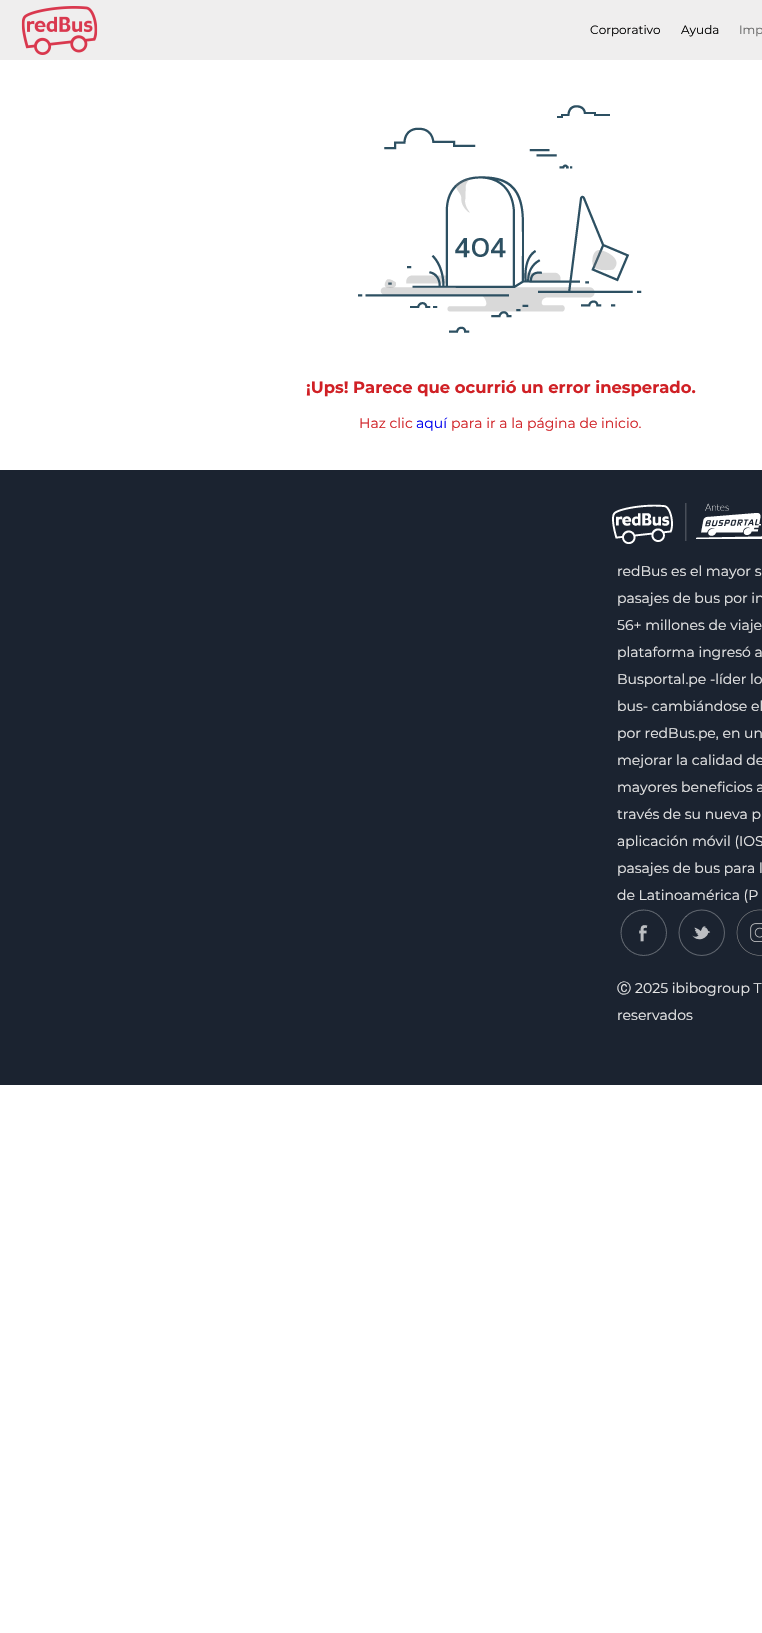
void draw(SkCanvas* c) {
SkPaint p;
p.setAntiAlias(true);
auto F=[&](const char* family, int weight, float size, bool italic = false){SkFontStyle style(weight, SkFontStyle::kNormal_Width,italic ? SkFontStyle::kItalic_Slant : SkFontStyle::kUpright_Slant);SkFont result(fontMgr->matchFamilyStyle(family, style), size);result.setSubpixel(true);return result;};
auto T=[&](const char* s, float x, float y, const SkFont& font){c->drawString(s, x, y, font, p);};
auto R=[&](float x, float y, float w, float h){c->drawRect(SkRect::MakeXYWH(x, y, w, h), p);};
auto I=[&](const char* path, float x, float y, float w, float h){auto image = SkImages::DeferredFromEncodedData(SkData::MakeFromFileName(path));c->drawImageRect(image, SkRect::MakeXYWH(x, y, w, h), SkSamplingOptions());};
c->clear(0xffffffff);
p.setColor(0xffefeeee);
R(0,0,762,60);
I("1.png",21,6,77,49);
auto f1 = F("Montserrat",400,12);
p.setColor(0xff000000);
T("Corporativo",590,34,f1);
T("Ayuda",681,34,f1);
p.setColor(0xff686868);
T("Imp",739,34,f1);
I("2.png",358,105,284,228);
auto f2 = F("Montserrat",700,16.4);
p.setColor(0xffd02025);
T("¡Ups! Parece que ocurrió un error inesperado.",306,393,f2);
auto f3 = F("Montserrat",400,14);
T("Haz clic",359,428,f3);
p.setColor(0xff0000ee);
T("aquí",416,428,f3);
p.setColor(0xffd02025);
T("para ir a la página de inicio.",451,428,f3);
p.setColor(0xff1b2330);
R(0,470,762,615);
I("3.png",612,504,61,40);
I("4.png",685,503,77,38);
p.setColor(0xffe7e7e7);
T("redBus es el mayor s",617,576,f3);
T("pasajes de bus por in",617,603,f3);
T("56+ millones de viaje",617,630,f3);
T("plataforma ingresó a",617,657,f3);
T("Busportal.pe -líder lo",617,684,f3);
T("bus- cambiándose el",617,711,f3);
T("por redBus.pe, en un",617,738,f3);
T("mejorar la calidad de",617,765,f3);
T("mayores beneficios a",617,792,f3);
T("través de su nueva p",617,819,f3);
T("aplicación móvil (IOS",617,846,f3);
T("pasajes de bus para l",617,873,f3);
T("de Latinoamérica (P",617,900,f3);
I("5.png",620,909,47,47);
I("6.png",678,909,47,47);
I("7.png",736,909,26,47);
auto f4 = F("WenQuanYi Zen Hei",500,14);
T("Ⓒ",617,993,f4);
T("2025 ibibogroup T",635,993,f3);
T("reservados",617,1020,f3);
}
